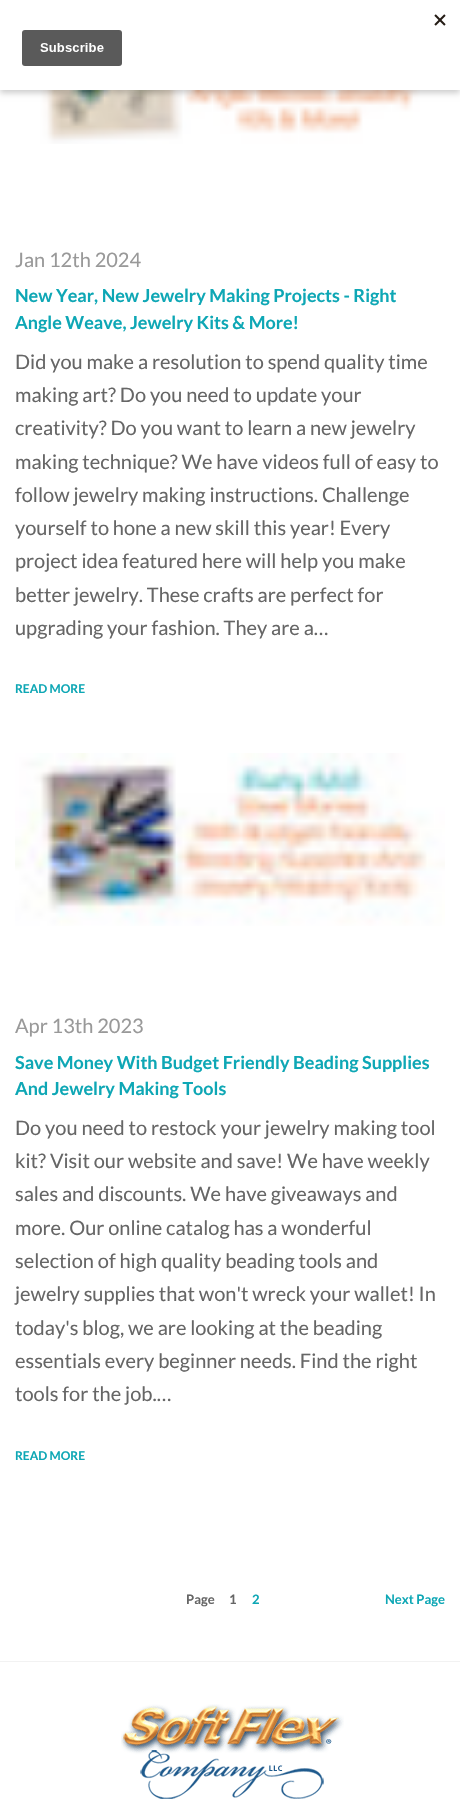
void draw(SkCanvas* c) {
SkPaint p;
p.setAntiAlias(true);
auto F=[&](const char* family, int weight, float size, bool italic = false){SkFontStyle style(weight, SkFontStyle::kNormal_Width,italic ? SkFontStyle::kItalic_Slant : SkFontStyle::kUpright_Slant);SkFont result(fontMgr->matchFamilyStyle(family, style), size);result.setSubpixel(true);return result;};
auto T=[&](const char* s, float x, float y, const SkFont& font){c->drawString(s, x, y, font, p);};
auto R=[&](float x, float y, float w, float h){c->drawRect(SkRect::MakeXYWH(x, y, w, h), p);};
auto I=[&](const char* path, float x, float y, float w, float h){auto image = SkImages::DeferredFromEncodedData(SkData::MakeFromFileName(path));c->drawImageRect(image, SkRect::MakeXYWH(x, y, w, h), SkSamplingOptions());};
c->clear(0xffffffff);
I("2.png",40,90,380,54);
p.setColor(0x33000000);
p.setMaskFilter(SkMaskFilter::MakeBlur(kNormal_SkBlurStyle, 3));
c->drawRect(SkRect::MakeXYWH(0,3,460,90),p);
p.setMaskFilter(nullptr);
p.setColor(0xffffffff);
R(0,0,460,90);
I("1.png",22,14,424,52);
auto f1 = F("Lato",400,20);
p.setColor(0xff999999);
T("Jan 12th 2024",15,267,f1);
auto f2 = F("Lato",700,18);
p.setColor(0xff0ea7b5);
T("New Year, New Jewelry Making Projects - Right",15,302,f2);
T("Angle Weave, Jewelry Kits & More!",15,329,f2);
p.setColor(0xff666666);
T("Did you make a resolution to spend quality time",15,369,f1);
T("making art? Do you need to update your",15,402,f1);
T("creativity? Do you want to learn a new jewelry",15,435,f1);
T("making technique? We have videos full of easy to",15,469,f1);
T("follow jewelry making instructions. Challenge",15,502,f1);
T("yourself to hone a new skill this year! Every",15,535,f1);
T("project idea featured here will help you make",15,568,f1);
T("better jewelry. These crafts are perfect for",15,602,f1);
T("upgrading your fashion. They are a…",15,635,f1);
auto f3 = F("Lato",700,12);
p.setColor(0xff0ea7b5);
T("READ MORE",15,693,f3);
I("3.png",15,753,430,173);
p.setColor(0xff999999);
T("Apr 13th 2023",15,1033,f1);
p.setColor(0xff0ea7b5);
T("Save Money With Budget Friendly Beading Supplies",15,1069,f2);
T("And Jewelry Making Tools",15,1095,f2);
p.setColor(0xff666666);
T("Do you need to restock your jewelry making tool",15,1135,f1);
T("kit? Visit our website and save! We have weekly",15,1168,f1);
T("sales and discounts. We have giveaways and",15,1201,f1);
T("more. Our online catalog has a wonderful",15,1235,f1);
T("selection of high quality beading tools and",15,1268,f1);
T("jewelry supplies that won't wreck your wallet! In",15,1301,f1);
T("today's blog, we are looking at the beading",15,1335,f1);
T("essentials every beginner needs. Find the right",15,1368,f1);
T("tools for the job.…",15,1401,f1);
p.setColor(0xff0ea7b5);
T("READ MORE",15,1460,f3);
auto f4 = F("Lato",700,13);
p.setColor(0xff666666);
T("Page",186,1604,f4);
T("1",229,1604,f4);
p.setColor(0xff0ea7b5);
T("2",252,1604,f4);
T("Next Page",385,1604,f4);
p.setColor(0xfff2f2f2);
R(0,1661,460,1);
I("4.png",121,1704,223,95);
}
